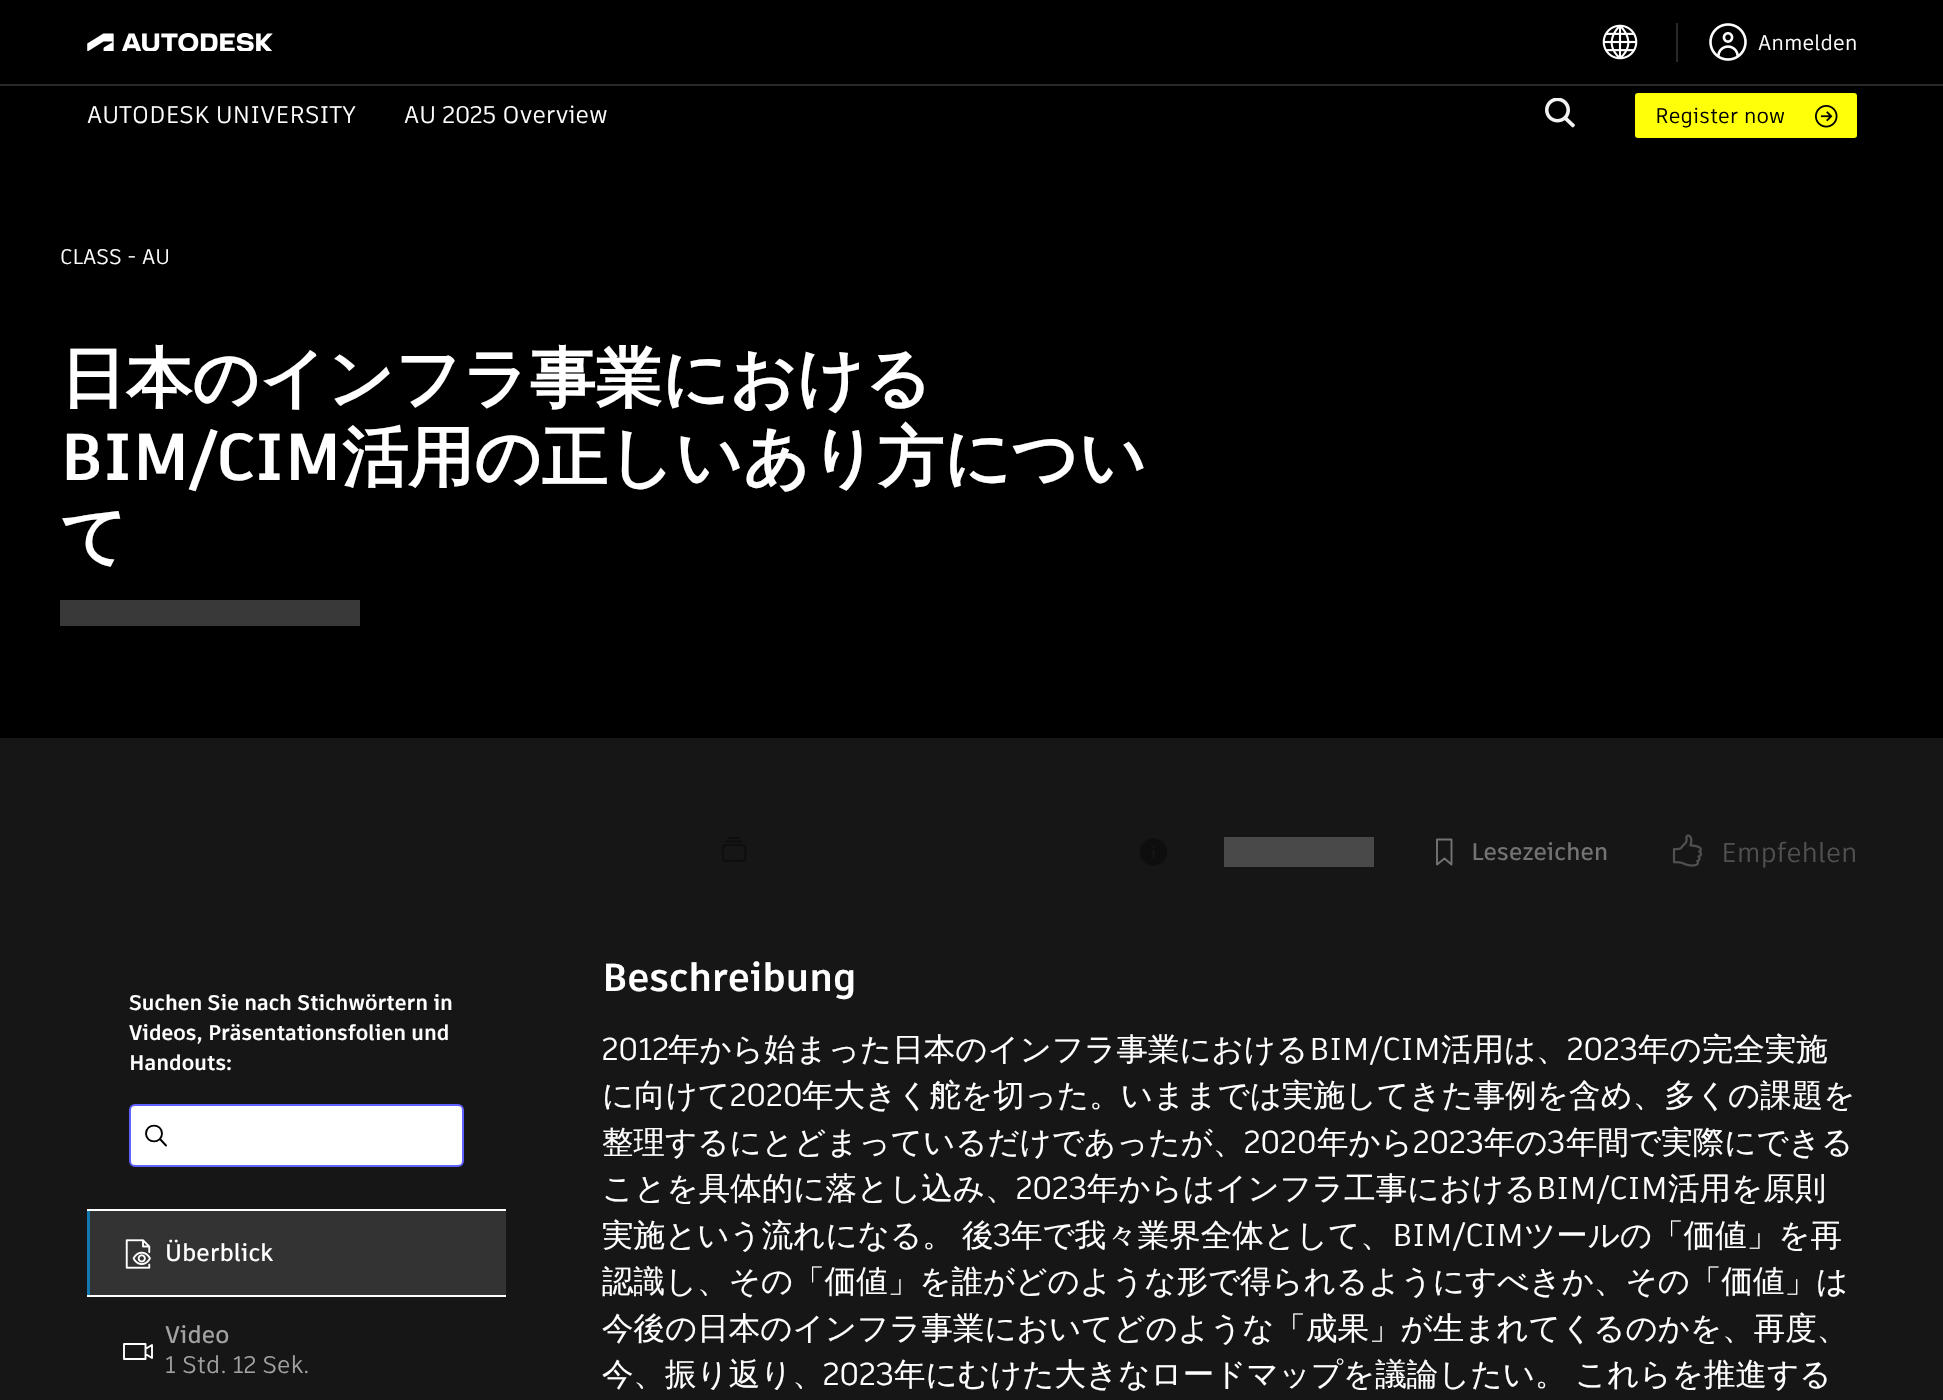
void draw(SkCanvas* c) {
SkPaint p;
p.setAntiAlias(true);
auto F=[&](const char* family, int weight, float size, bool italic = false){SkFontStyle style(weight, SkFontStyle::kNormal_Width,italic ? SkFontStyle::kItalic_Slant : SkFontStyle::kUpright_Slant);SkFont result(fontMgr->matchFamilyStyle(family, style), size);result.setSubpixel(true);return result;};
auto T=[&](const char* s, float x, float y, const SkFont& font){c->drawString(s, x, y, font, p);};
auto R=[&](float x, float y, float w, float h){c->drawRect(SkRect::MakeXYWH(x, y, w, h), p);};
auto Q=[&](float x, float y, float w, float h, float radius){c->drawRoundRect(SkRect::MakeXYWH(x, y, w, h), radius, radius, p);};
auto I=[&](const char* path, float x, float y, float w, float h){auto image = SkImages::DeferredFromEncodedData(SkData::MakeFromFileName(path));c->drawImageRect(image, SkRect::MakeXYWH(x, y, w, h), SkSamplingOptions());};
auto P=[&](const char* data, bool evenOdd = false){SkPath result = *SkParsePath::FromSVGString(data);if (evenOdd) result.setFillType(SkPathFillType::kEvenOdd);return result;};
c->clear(0xff000000);
p.setColor(0xff292929);
R(0,84,1943,2);
I("1.png",87,33,186,18);
R(1676,23,2,39);
I("2.png",1602,24,36,36);
I("3.png",1709,23,38,38);
auto f1 = F("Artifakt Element",400,21);
p.setColor(0xffffffff);
T("Anmelden",1758,50,f1);
auto f2 = F("Artifakt Element",400,24);
T("AUTODESK UNIVERSITY",87,123,f2);
T("AU 2025 Overview",404,123,f2);
I("4.png",1545,98,30,30);
p.setColor(0xfffeff09);
Q(1635,93,222,45,3);
I("5.png",1815,105,23,23);
p.setColor(0xff000000);
T("Register now",1655,123,f1);
p.setColor(0xffffffff);
T("CLASS - AU",60,264,f1);
auto f3 = F("WenQuanYi Zen Hei",700,66);
T("日本のインフラ事業における",60,401,f3);
auto f4 = F("Artifakt Element",700,66);
T("BIM/CIM",60,480,f4);
T("活用の正しいあり方につい",342,480,f3);
T("て",60,559,f3);
p.setColor(0xff393939);
R(60,600,300,26);
p.setColor(0xff161616);
R(0,738,1943,662);
I("6.png",722,837,25,25);
I("7.png",1140,838,27,28);
p.setColor(0xff494949);
R(1224,837,150,30);
p.setStroke(true);
p.setStrokeWidth(1.9);
p.setStrokeJoin(SkPaint::kRound_Join);
p.setColor(0xff737373);
c->drawPath(P("M1451.5 864.5l-7-6l-7.5 6v-25h14.5z"),p);
auto f5 = F("Artifakt Element",600,24);
p.setStroke(false);
T("Lesezeichen",1471,860,f5);
I("8.png",1672,834,30,33);
auto f6 = F("Artifakt Element",400,27);
p.setColor(0xff505050);
T("Empfehlen",1721,862,f6);
p.setColor(0xffffffff);
R(87,1209,419,2);
auto f7 = F("Artifakt Element",700,21);
T("Suchen Sie nach Stichwörtern in",129,1010,f7);
T("Videos, Präsentationsfolien und",129,1040,f7);
T("Handouts:",129,1070,f7);
c->drawRoundRect(SkRect::MakeXYWH(130,1105,333,61),5,5,p);
p.setStroke(true);
p.setStrokeWidth(2);
p.setStrokeJoin(SkPaint::kMiter_Join);
p.setColor(0xff5f60ff);
c->drawRoundRect(SkRect::MakeXYWH(130,1105,333,61),5,5,p);
p.setStrokeWidth(1.9);
p.setStrokeCap(SkPaint::kRound_Cap);
p.setStrokeJoin(SkPaint::kRound_Join);
p.setColor(0xff000000);
c->drawPath(P("M160 1139l6 6.5m-4-12c0 10.5-16 10.5-16 0c0-10.5 16-10.5 16 0z"),p);
p.setStroke(false);
p.setColor(0xff333333);
R(90,1211,416,84);
p.setColor(0xff1278af);
R(87,1211,3,84);
p.setColor(0xffffffff);
R(87,1295,419,2);
I("9.png",125,1239,26,30);
T("Überblick",165,1261,f5);
p.setStroke(true);
p.setStrokeCap(SkPaint::kButt_Cap);
c->drawPath(P("M145.5 1349l6.5-4v13l-6.5-4m-21.5-10h21.5v15h-21.5z"),p);
p.setStroke(false);
p.setColor(0xffa2a2a2);
T("Video",165,1343,f5);
T("1 Std. 12 Sek.",165,1373,f2);
auto f8 = F("Artifakt Element",700,39);
p.setColor(0xffffffff);
T("Beschreibung",602,991,f8);
auto f9 = F("Artifakt Element",400,31.5);
T("2012",602,1060,f9);
auto f10 = F("WenQuanYi Zen Hei",500,31.5);
T("年から始まった日本のインフラ事業における",668,1060,f10);
T("BIM/CIM",1309,1060,f9);
T("活用は、",1441,1060,f10);
T("2023",1567,1060,f9);
T("年の完全実施",1638,1060,f10);
T("に向けて",602,1106,f10);
T("2020",730,1106,f9);
T("年大きく舵を切った。いままでは実施してきた事例を含め、多くの課題を",802,1106,f10);
T("整理するにとどまっているだけであったが、",602,1153,f10);
T("2020",1244,1153,f9);
T("年から",1317,1153,f10);
T("2023",1413,1153,f9);
T("年の",1484,1153,f10);
T("3",1547,1153,f9);
T("年間で実際にできる",1566,1153,f10);
T("ことを具体的に落とし込み、",602,1199,f10);
T("2023",1016,1199,f9);
T("年からはインフラ工事における",1087,1199,f10);
T("BIM/CIM",1536,1199,f9);
T("活用を原則",1668,1199,f10);
T("実施という流れになる。",602,1246,f10);
T("後",962,1246,f10);
T("3",993,1246,f9);
T("年で我々業界全体として、",1011,1246,f10);
T("BIM/CIM",1392,1246,f9);
T("ツールの「価値」を再",1524,1246,f10);
T("認識し、その「価値」を誰がどのような形で得られるようにすべきか、その「価値」は",602,1292,f10);
T("今後の日本のインフラ事業においてどのような「成果」が生まれてくるのかを、再度、",602,1339,f10);
T("今、振り返り、",602,1385,f10);
T("2023",823,1385,f9);
T("年にむけた大きなロードマップを議論したい。",894,1385,f10);
T("これらを推進する",1575,1385,f10);
}
